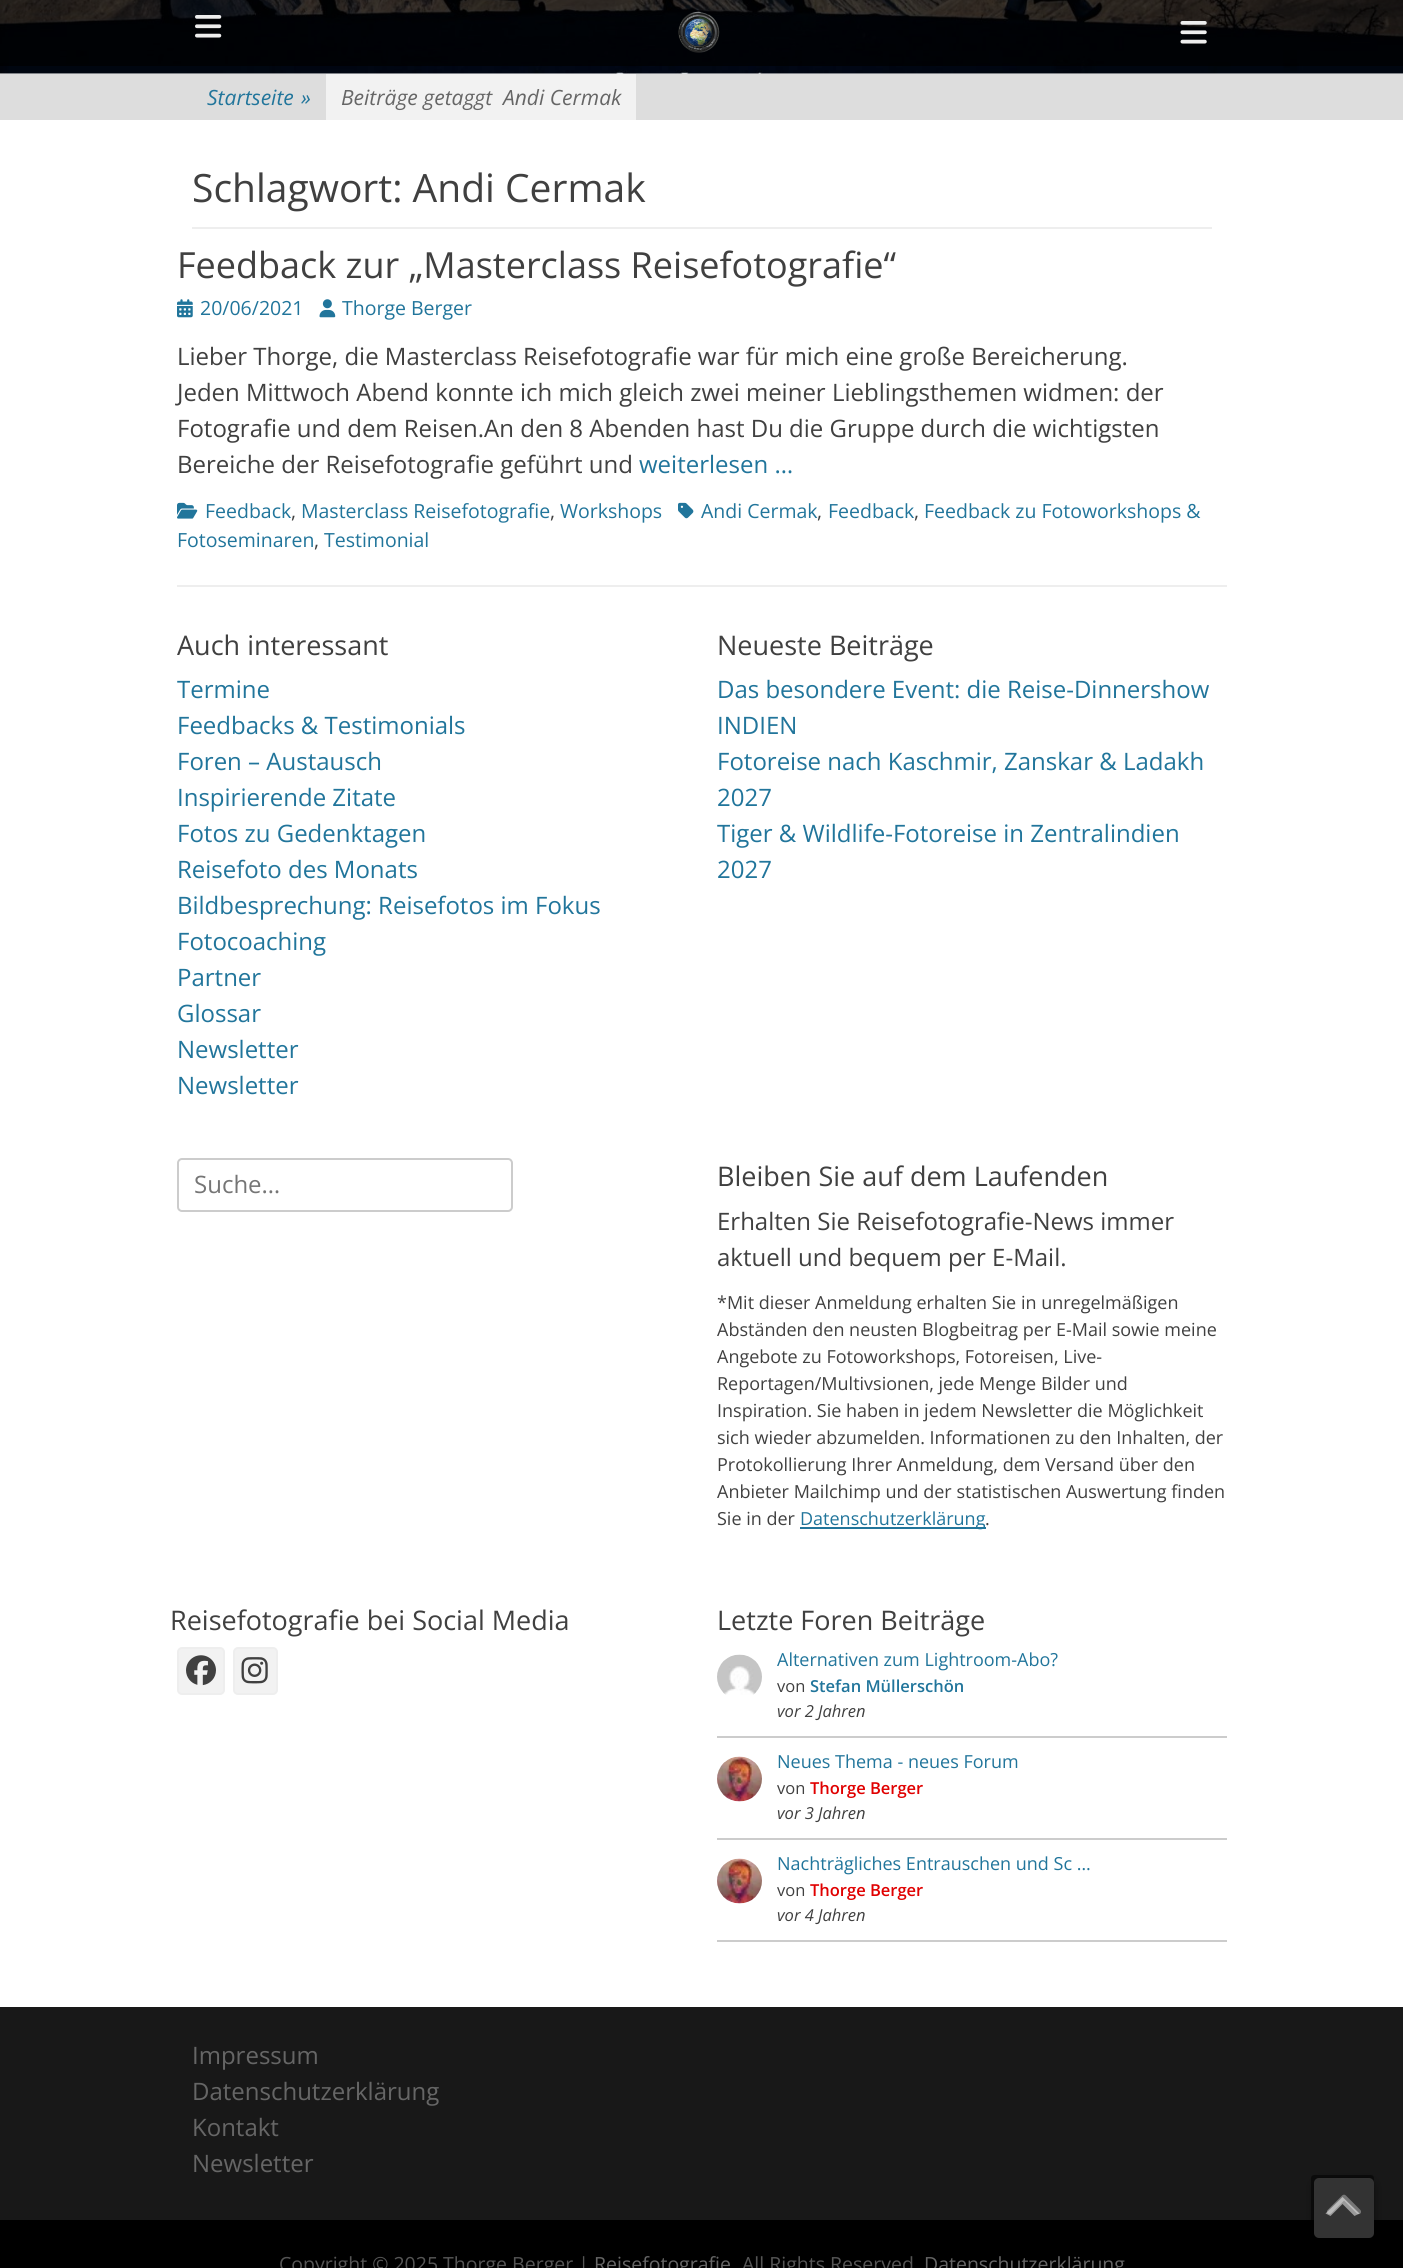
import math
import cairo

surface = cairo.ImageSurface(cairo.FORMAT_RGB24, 1403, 2268)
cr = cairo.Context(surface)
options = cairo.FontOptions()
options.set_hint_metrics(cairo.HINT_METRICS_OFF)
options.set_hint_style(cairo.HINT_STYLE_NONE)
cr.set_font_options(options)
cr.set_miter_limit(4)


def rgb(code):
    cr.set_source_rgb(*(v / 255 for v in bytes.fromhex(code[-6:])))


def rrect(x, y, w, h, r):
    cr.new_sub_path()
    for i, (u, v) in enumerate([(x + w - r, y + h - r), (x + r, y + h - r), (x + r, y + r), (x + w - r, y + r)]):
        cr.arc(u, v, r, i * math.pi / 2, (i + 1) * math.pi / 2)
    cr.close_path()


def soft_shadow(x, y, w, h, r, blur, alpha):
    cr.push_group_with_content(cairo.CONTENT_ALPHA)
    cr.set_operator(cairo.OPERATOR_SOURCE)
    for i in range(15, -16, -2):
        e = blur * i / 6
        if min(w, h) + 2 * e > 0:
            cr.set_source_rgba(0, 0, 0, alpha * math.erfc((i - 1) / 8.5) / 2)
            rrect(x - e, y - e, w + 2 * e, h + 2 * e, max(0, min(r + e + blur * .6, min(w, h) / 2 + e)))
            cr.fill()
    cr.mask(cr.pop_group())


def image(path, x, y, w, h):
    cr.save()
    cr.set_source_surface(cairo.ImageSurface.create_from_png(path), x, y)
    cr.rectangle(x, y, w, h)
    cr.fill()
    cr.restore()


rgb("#ffffff")
cr.paint()
image("img/1.png", 0, 0, 1403, 74)
cr.set_source_rgba(0, 0, 0, 0.7)
cr.rectangle(0, 0, 1403, 66)
cr.fill()
image("img/2.png", 195, 15, 27, 23)
image("img/3.png", 678, 11, 42, 42)
image("img/4.png", 1180, 21, 27, 23)
for x, y, w, h, color in [
    (0, 74, 1403, 46, "#dddddd"),
    (326, 74, 310, 46, "#f2f2f2"),
    (192, 227, 1020, 2, "#eeeeee"),
    (177, 585, 1050, 2, "#eeeeee"),
]:
    rgb(color)
    cr.rectangle(x, y, w, h)
    cr.fill()
image("img/5.png", 177, 299, 16, 19)
image("img/6.png", 319, 299, 17, 19)
image("img/7.png", 678, 502, 16, 17)
image("img/8.png", 177, 502, 21, 17)
rrect(178, 1159, 334, 52, 4)
rgb("#cccccc")
cr.stroke()
rgb("#21759b")
cr.rectangle(800, 1527, 186, 2)
cr.fill()
rgb("#f2f2f2")
rrect(178, 1648, 46, 46, 4)
cr.fill_preserve()
rgb("#eeeeee")
cr.stroke()
image("img/9.png", 186, 1655, 30, 31)
rgb("#f2f2f2")
rrect(234, 1648, 43, 46, 4)
cr.fill_preserve()
rgb("#eeeeee")
cr.stroke()
image("img/10.png", 241, 1657, 27, 27)
rgb("#cccccc")
cr.rectangle(717, 1736, 510, 2)
cr.fill()
image("img/11.png", 717, 1654, 45, 41)
cr.rectangle(717, 1838, 510, 2)
cr.fill()
image("img/12.png", 717, 1756, 45, 46)
cr.rectangle(717, 1940, 510, 2)
cr.fill()
image("img/13.png", 717, 1858, 45, 46)
rgb("#181818")
cr.rectangle(0, 2007, 1403, 213)
cr.fill()
rgb("#000000")
cr.rectangle(0, 2220, 1403, 48)
cr.fill()
rgb("#000000")
soft_shadow(1314, 2181, 60, 60, 5, 4.5, 0.5)
rgb("#666666")
rrect(1314, 2178, 60, 60, 5)
cr.fill()
image("img/14.png", 1327, 2194, 34, 21)
cr.set_source_rgba(0, 0, 0, 0.5)
rrect(1311, 2175, 63, 63, 3)
cr.fill()
cr.set_source_rgba(1, 1, 1, 0.5)
cr.new_path()
cr.move_to(1354.5, 2216)
cr.line_to(1342.5, 2204)
cr.line_to(1330.5, 2216)
cr.line_to(1325.5, 2213.5)
cr.line_to(1342.5, 2197)
cr.line_to(1359.5, 2213.5)
cr.close_path()
cr.fill()
cr.select_font_face("Open Sans", cairo.FONT_SLANT_ITALIC)
cr.set_font_size(21)
rgb("#21759b")
cr.move_to(207, 105)
cr.show_text("Startseite")
cr.move_to(301, 105)
cr.show_text("»")
rgb("#666666")
cr.move_to(341, 105)
cr.show_text("Beiträge getaggt")
cr.move_to(503, 105)
cr.show_text("Andi Cermak")
cr.select_font_face("Open Sans")
cr.set_font_size(39)
rgb("#404040")
cr.move_to(192, 202)
cr.show_text("Schlagwort: Andi Cermak")
cr.set_font_size(36)
cr.move_to(177, 278)
cr.show_text("Feedback zur „Masterclass Reisefotografie“")
cr.set_font_size(19.5)
rgb("#21759b")
cr.move_to(200, 315)
cr.show_text("20/06/2021")
cr.move_to(342, 315)
cr.show_text("Thorge Berger")
cr.set_font_size(24)
rgb("#404040")
for x, y, s in [
    (177, 365, "Lieber Thorge, die Masterclass Reisefotografie war für mich eine große Bereicherung."),
    (177, 401, "Jeden Mittwoch Abend konnte ich mich gleich zwei meiner Lieblingsthemen widmen: der"),
    (177, 437, "Fotografie und dem Reisen.An den 8 Abenden hast Du die Gruppe durch die wichtigsten"),
    (177, 473, "Bereiche der Reisefotografie geführt und"),
]:
    cr.move_to(x, y)
    cr.show_text(s)
rgb("#21759b")
cr.move_to(639, 473)
cr.show_text("weiterlesen …")
cr.set_font_size(19.5)
cr.move_to(701, 518)
cr.show_text("Andi Cermak")
rgb("#404040")
cr.move_to(817, 518)
cr.show_text(",")
rgb("#21759b")
cr.move_to(828, 518)
cr.show_text("Feedback")
rgb("#404040")
cr.move_to(914, 518)
cr.show_text(",")
rgb("#21759b")
cr.move_to(924, 518)
cr.show_text("Feedback zu Fotoworkshops &")
cr.move_to(177, 547)
cr.show_text("Fotoseminaren")
rgb("#404040")
cr.move_to(314, 547)
cr.show_text(",")
rgb("#21759b")
cr.move_to(324, 547)
cr.show_text("Testimonial")
cr.move_to(205, 518)
cr.show_text("Feedback")
rgb("#404040")
cr.move_to(291, 518)
cr.show_text(",")
rgb("#21759b")
cr.move_to(301, 518)
cr.show_text("Masterclass Reisefotografie")
rgb("#404040")
cr.move_to(550, 518)
cr.show_text(",")
rgb("#21759b")
cr.move_to(560, 518)
cr.show_text("Workshops")
cr.set_font_size(27)
rgb("#404040")
cr.move_to(177, 655)
cr.show_text("Auch interessant")
cr.set_font_size(24)
rgb("#21759b")
for x, y, s in [
    (177, 698, "Termine"),
    (177, 734, "Feedbacks & Testimonials"),
    (177, 770, "Foren – Austausch"),
    (177, 806, "Inspirierende Zitate"),
    (177, 842, "Fotos zu Gedenktagen"),
    (177, 878, "Reisefoto des Monats"),
    (177, 914, "Bildbesprechung: Reisefotos im Fokus"),
    (177, 950, "Fotocoaching"),
    (177, 986, "Partner"),
    (177, 1022, "Glossar"),
    (177, 1058, "Newsletter"),
    (177, 1094, "Newsletter"),
]:
    cr.move_to(x, y)
    cr.show_text(s)
cr.set_font_size(27)
rgb("#404040")
cr.move_to(717, 655)
cr.show_text("Neueste Beiträge")
cr.set_font_size(24)
rgb("#21759b")
for x, y, s in [
    (717, 698, "Das besondere Event: die Reise-Dinnershow"),
    (717, 734, "INDIEN"),
    (717, 770, "Fotoreise nach Kaschmir, Zanskar & Ladakh"),
    (717, 806, "2027"),
    (717, 842, "Tiger & Wildlife-Fotoreise in Zentralindien"),
    (717, 878, "2027"),
]:
    cr.move_to(x, y)
    cr.show_text(s)
rgb("#757575")
cr.move_to(194, 1193)
cr.show_text("Suche…")
cr.set_font_size(27)
rgb("#404040")
cr.move_to(717, 1186)
cr.show_text("Bleiben Sie auf dem Laufenden")
cr.set_font_size(24)
cr.move_to(717, 1230)
cr.show_text("Erhalten Sie Reisefotografie-News immer")
cr.move_to(717, 1266)
cr.show_text("aktuell und bequem per E-Mail.")
cr.set_font_size(18)
for x, y, s in [
    (717, 1309, "*Mit dieser Anmeldung erhalten Sie in unregelmäßigen"),
    (717, 1336, "Abständen den neusten Blogbeitrag per E-Mail sowie meine"),
    (717, 1363, "Angebote zu Fotoworkshops, Fotoreisen, Live-"),
    (717, 1390, "Reportagen/Multivsionen, jede Menge Bilder und"),
    (717, 1417, "Inspiration. Sie haben in jedem Newsletter die Möglichkeit"),
    (717, 1444, "sich wieder abzumelden. Informationen zu den Inhalten, der"),
    (717, 1471, "Protokollierung Ihrer Anmeldung, dem Versand über den"),
    (717, 1498, "Anbieter Mailchimp und der statistischen Auswertung finden"),
    (717, 1525, "Sie in der"),
]:
    cr.move_to(x, y)
    cr.show_text(s)
rgb("#21759b")
cr.move_to(800, 1525)
cr.show_text("Datenschutzerklärung")
rgb("#404040")
cr.move_to(985, 1525)
cr.show_text(".")
cr.set_font_size(27)
cr.move_to(170, 1630)
cr.show_text("Reisefotografie bei Social Media")
cr.move_to(717, 1630)
cr.show_text("Letzte Foren Beiträge")
cr.set_font_size(18)
rgb("#21759b")
cr.move_to(777, 1666)
cr.show_text("Alternativen zum Lightroom-Abo?")
cr.set_font_size(16.5)
rgb("#404040")
cr.move_to(777, 1692)
cr.show_text("von")
cr.select_font_face("Open Sans SemiBold")
rgb("#21759b")
cr.move_to(810, 1692)
cr.show_text("Stefan Müllerschön")
cr.select_font_face("Open Sans", cairo.FONT_SLANT_ITALIC)
rgb("#404040")
cr.move_to(777, 1717)
cr.show_text("vor 2 Jahren")
cr.select_font_face("Open Sans")
cr.set_font_size(18)
rgb("#21759b")
cr.move_to(777, 1768)
cr.show_text("Neues Thema - neues Forum")
cr.set_font_size(16.5)
rgb("#404040")
cr.move_to(777, 1794)
cr.show_text("von")
cr.select_font_face("Open Sans SemiBold")
rgb("#e00000")
cr.move_to(810, 1794)
cr.show_text("Thorge Berger")
cr.select_font_face("Open Sans", cairo.FONT_SLANT_ITALIC)
rgb("#404040")
cr.move_to(777, 1819)
cr.show_text("vor 3 Jahren")
cr.select_font_face("Open Sans")
cr.set_font_size(18)
rgb("#21759b")
cr.move_to(777, 1870)
cr.show_text("Nachträgliches Entrauschen und Sc …")
cr.set_font_size(16.5)
rgb("#404040")
cr.move_to(777, 1896)
cr.show_text("von")
cr.select_font_face("Open Sans SemiBold")
rgb("#e00000")
cr.move_to(810, 1896)
cr.show_text("Thorge Berger")
cr.select_font_face("Open Sans", cairo.FONT_SLANT_ITALIC)
rgb("#404040")
cr.move_to(777, 1921)
cr.show_text("vor 4 Jahren")
cr.select_font_face("Open Sans")
cr.set_font_size(24)
rgb("#666666")
for x, y, s in [
    (192, 2064, "Impressum"),
    (192, 2100, "Datenschutzerklärung"),
    (192, 2136, "Kontakt"),
    (192, 2172, "Newsletter"),
]:
    cr.move_to(x, y)
    cr.show_text(s)
cr.set_font_size(19.5)
rgb("#555555")
cr.move_to(279, 2271)
cr.show_text("Copyright © 2025 Thorge Berger |")
rgb("#666666")
cr.move_to(594, 2271)
cr.show_text("Reisefotografie")
rgb("#555555")
cr.move_to(742, 2271)
cr.show_text("All Rights Reserved")
rgb("#666666")
cr.move_to(924, 2271)
cr.show_text("Datenschutzerklärung")
surface.write_to_png("page.png")
